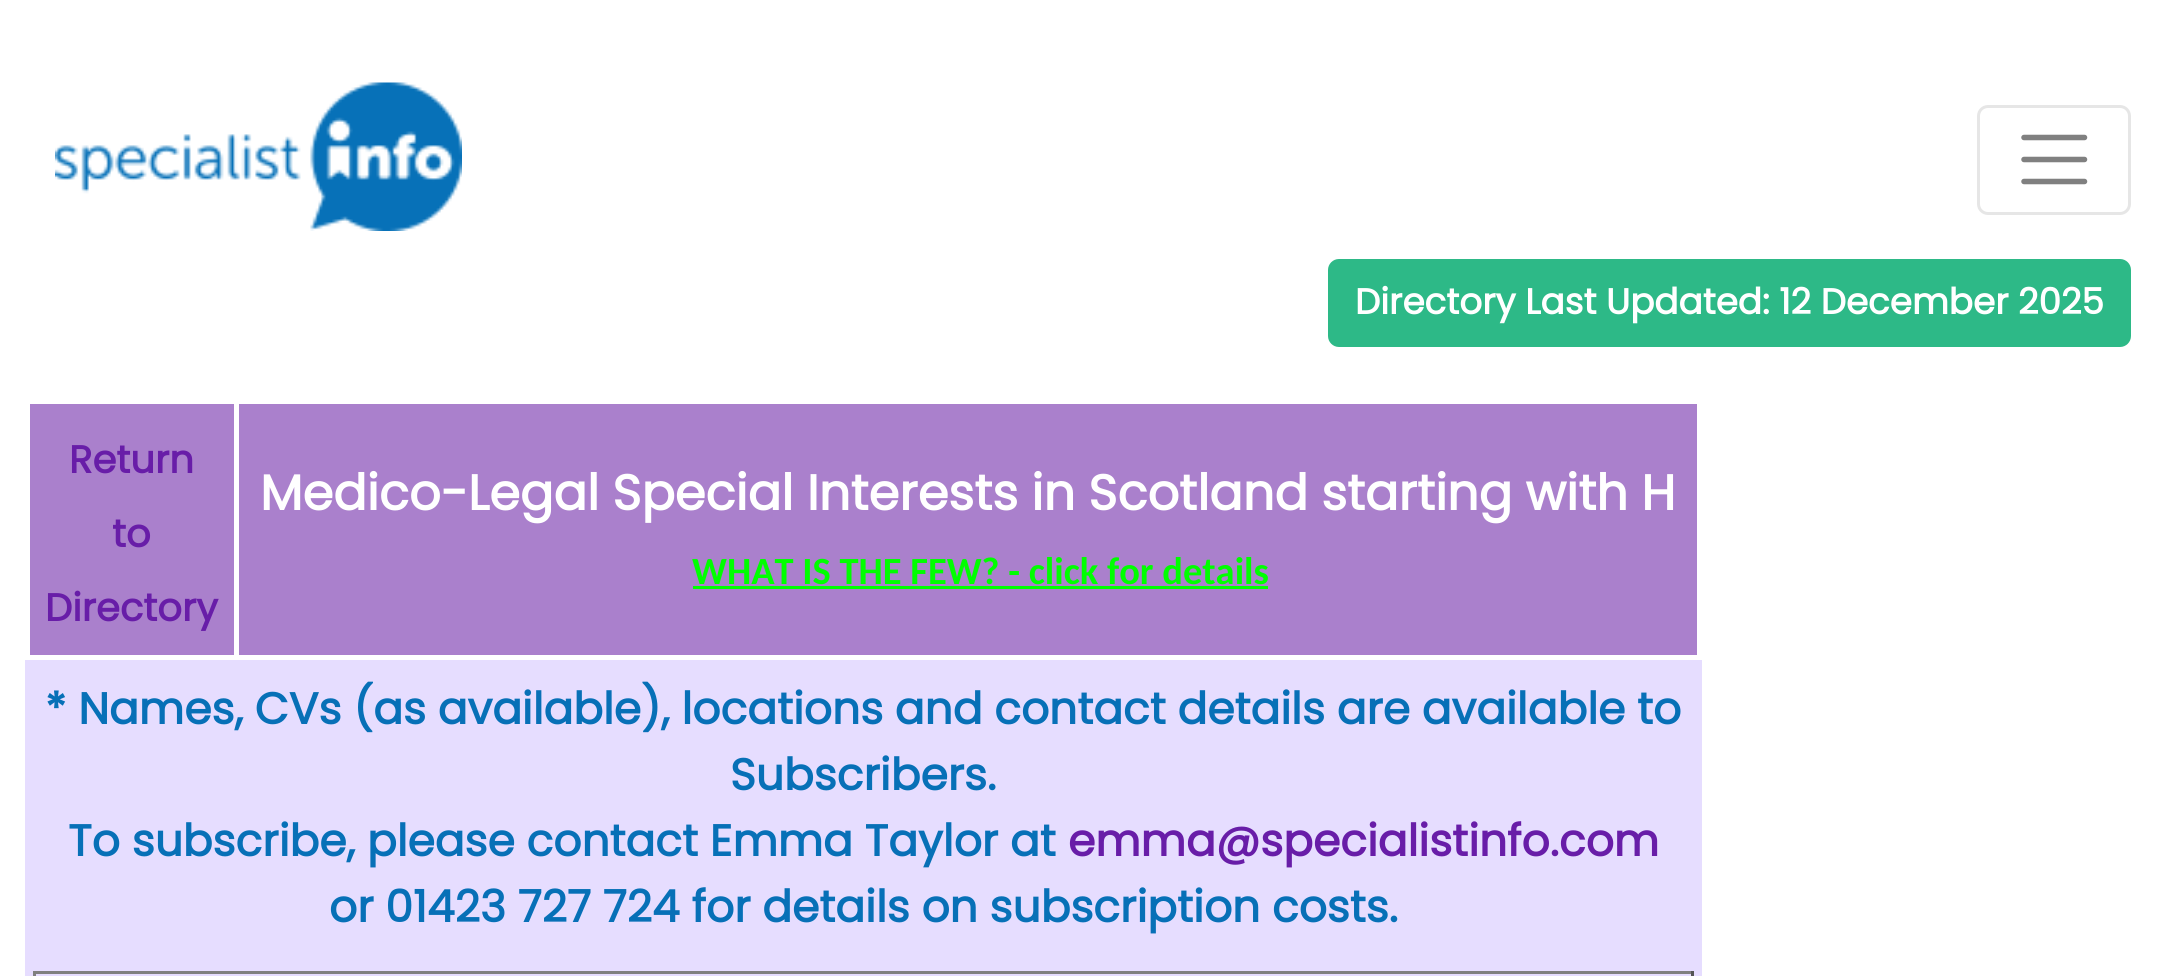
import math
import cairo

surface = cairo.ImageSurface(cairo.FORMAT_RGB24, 2184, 976)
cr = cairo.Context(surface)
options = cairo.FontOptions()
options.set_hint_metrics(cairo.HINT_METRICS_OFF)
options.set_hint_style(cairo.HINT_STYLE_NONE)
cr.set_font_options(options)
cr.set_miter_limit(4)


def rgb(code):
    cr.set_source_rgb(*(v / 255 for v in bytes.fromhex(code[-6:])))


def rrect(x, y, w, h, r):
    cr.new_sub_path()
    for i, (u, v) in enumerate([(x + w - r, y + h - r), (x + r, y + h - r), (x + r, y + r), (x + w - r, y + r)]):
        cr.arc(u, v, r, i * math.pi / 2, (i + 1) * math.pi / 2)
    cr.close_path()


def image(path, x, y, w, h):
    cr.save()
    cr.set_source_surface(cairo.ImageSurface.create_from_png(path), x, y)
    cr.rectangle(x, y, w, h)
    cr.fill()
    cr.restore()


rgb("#ffffff")
cr.paint()
image("img/1.png", 55, 82, 407, 149)
rrect(1978.5, 106.5, 151, 107, 9.5)
rgb("#e6e6e6")
cr.set_line_width(3)
cr.stroke()
cr.new_path()
cr.move_to(2024, 137.5)
cr.line_to(2084.5, 137.5)
cr.move_to(2024, 159.5)
cr.line_to(2084.5, 159.5)
cr.move_to(2024, 181.5)
cr.line_to(2084.5, 181.5)
rgb("#808080")
cr.set_line_width(5.5)
cr.set_line_cap(cairo.LINE_CAP_ROUND)
cr.stroke()
rgb("#2db987")
rrect(1328, 259, 803, 88, 11)
cr.fill()
for x, y, w, h, color in [
    (30, 404, 204, 251, "#aa80cc"),
    (239, 404, 1458, 251, "#aa80cc"),
    (693, 586, 575, 3, "#00ff00"),
    (25, 660, 1677, 316, "#e6ddff"),
    (33, 971, 1661, 3, "#808080"),
    (1691, 971, 3, 5, "#555555"),
    (33, 971, 3, 5, "#808080"),
]:
    rgb(color)
    cr.rectangle(x, y, w, h)
    cr.fill()
cr.select_font_face("Poppins", cairo.FONT_SLANT_NORMAL, cairo.FONT_WEIGHT_BOLD)
cr.set_font_size(35.75)
rgb("#ffffff")
cr.move_to(1355, 314)
cr.show_text("Directory Last Updated: 12 December 2025")
cr.set_font_size(38.5)
rgb("#681da8")
for x, y, s in [
    (69, 473, "Return"),
    (112, 547, "to"),
    (45, 621, "Directory"),
]:
    cr.move_to(x, y)
    cr.show_text(s)
cr.set_font_size(49.5)
rgb("#ffffff")
cr.move_to(260, 510)
cr.show_text("Medico-Legal Special Interests in Scotland starting with H")
cr.select_font_face("Carlito", cairo.FONT_SLANT_NORMAL, cairo.FONT_WEIGHT_BOLD)
cr.set_font_size(38.5)
rgb("#00ff00")
cr.move_to(692, 584)
cr.show_text("WHAT IS THE FEW? - click for details")
cr.select_font_face("Poppins", cairo.FONT_SLANT_NORMAL, cairo.FONT_WEIGHT_BOLD)
cr.set_font_size(44)
rgb("#0770b7")
for x, y, s in [
    (45, 724, "* Names, CVs (as available), locations and contact details are available to"),
    (730, 790, "Subscribers."),
    (68, 856, "To subscribe, please contact Emma Taylor at"),
]:
    cr.move_to(x, y)
    cr.show_text(s)
rgb("#681da8")
cr.move_to(1068, 856)
cr.show_text("emma@specialistinfo.com")
rgb("#0770b7")
cr.move_to(329, 922)
cr.show_text("or 01423 727 724 for details on subscription costs.")
surface.write_to_png("page.png")
